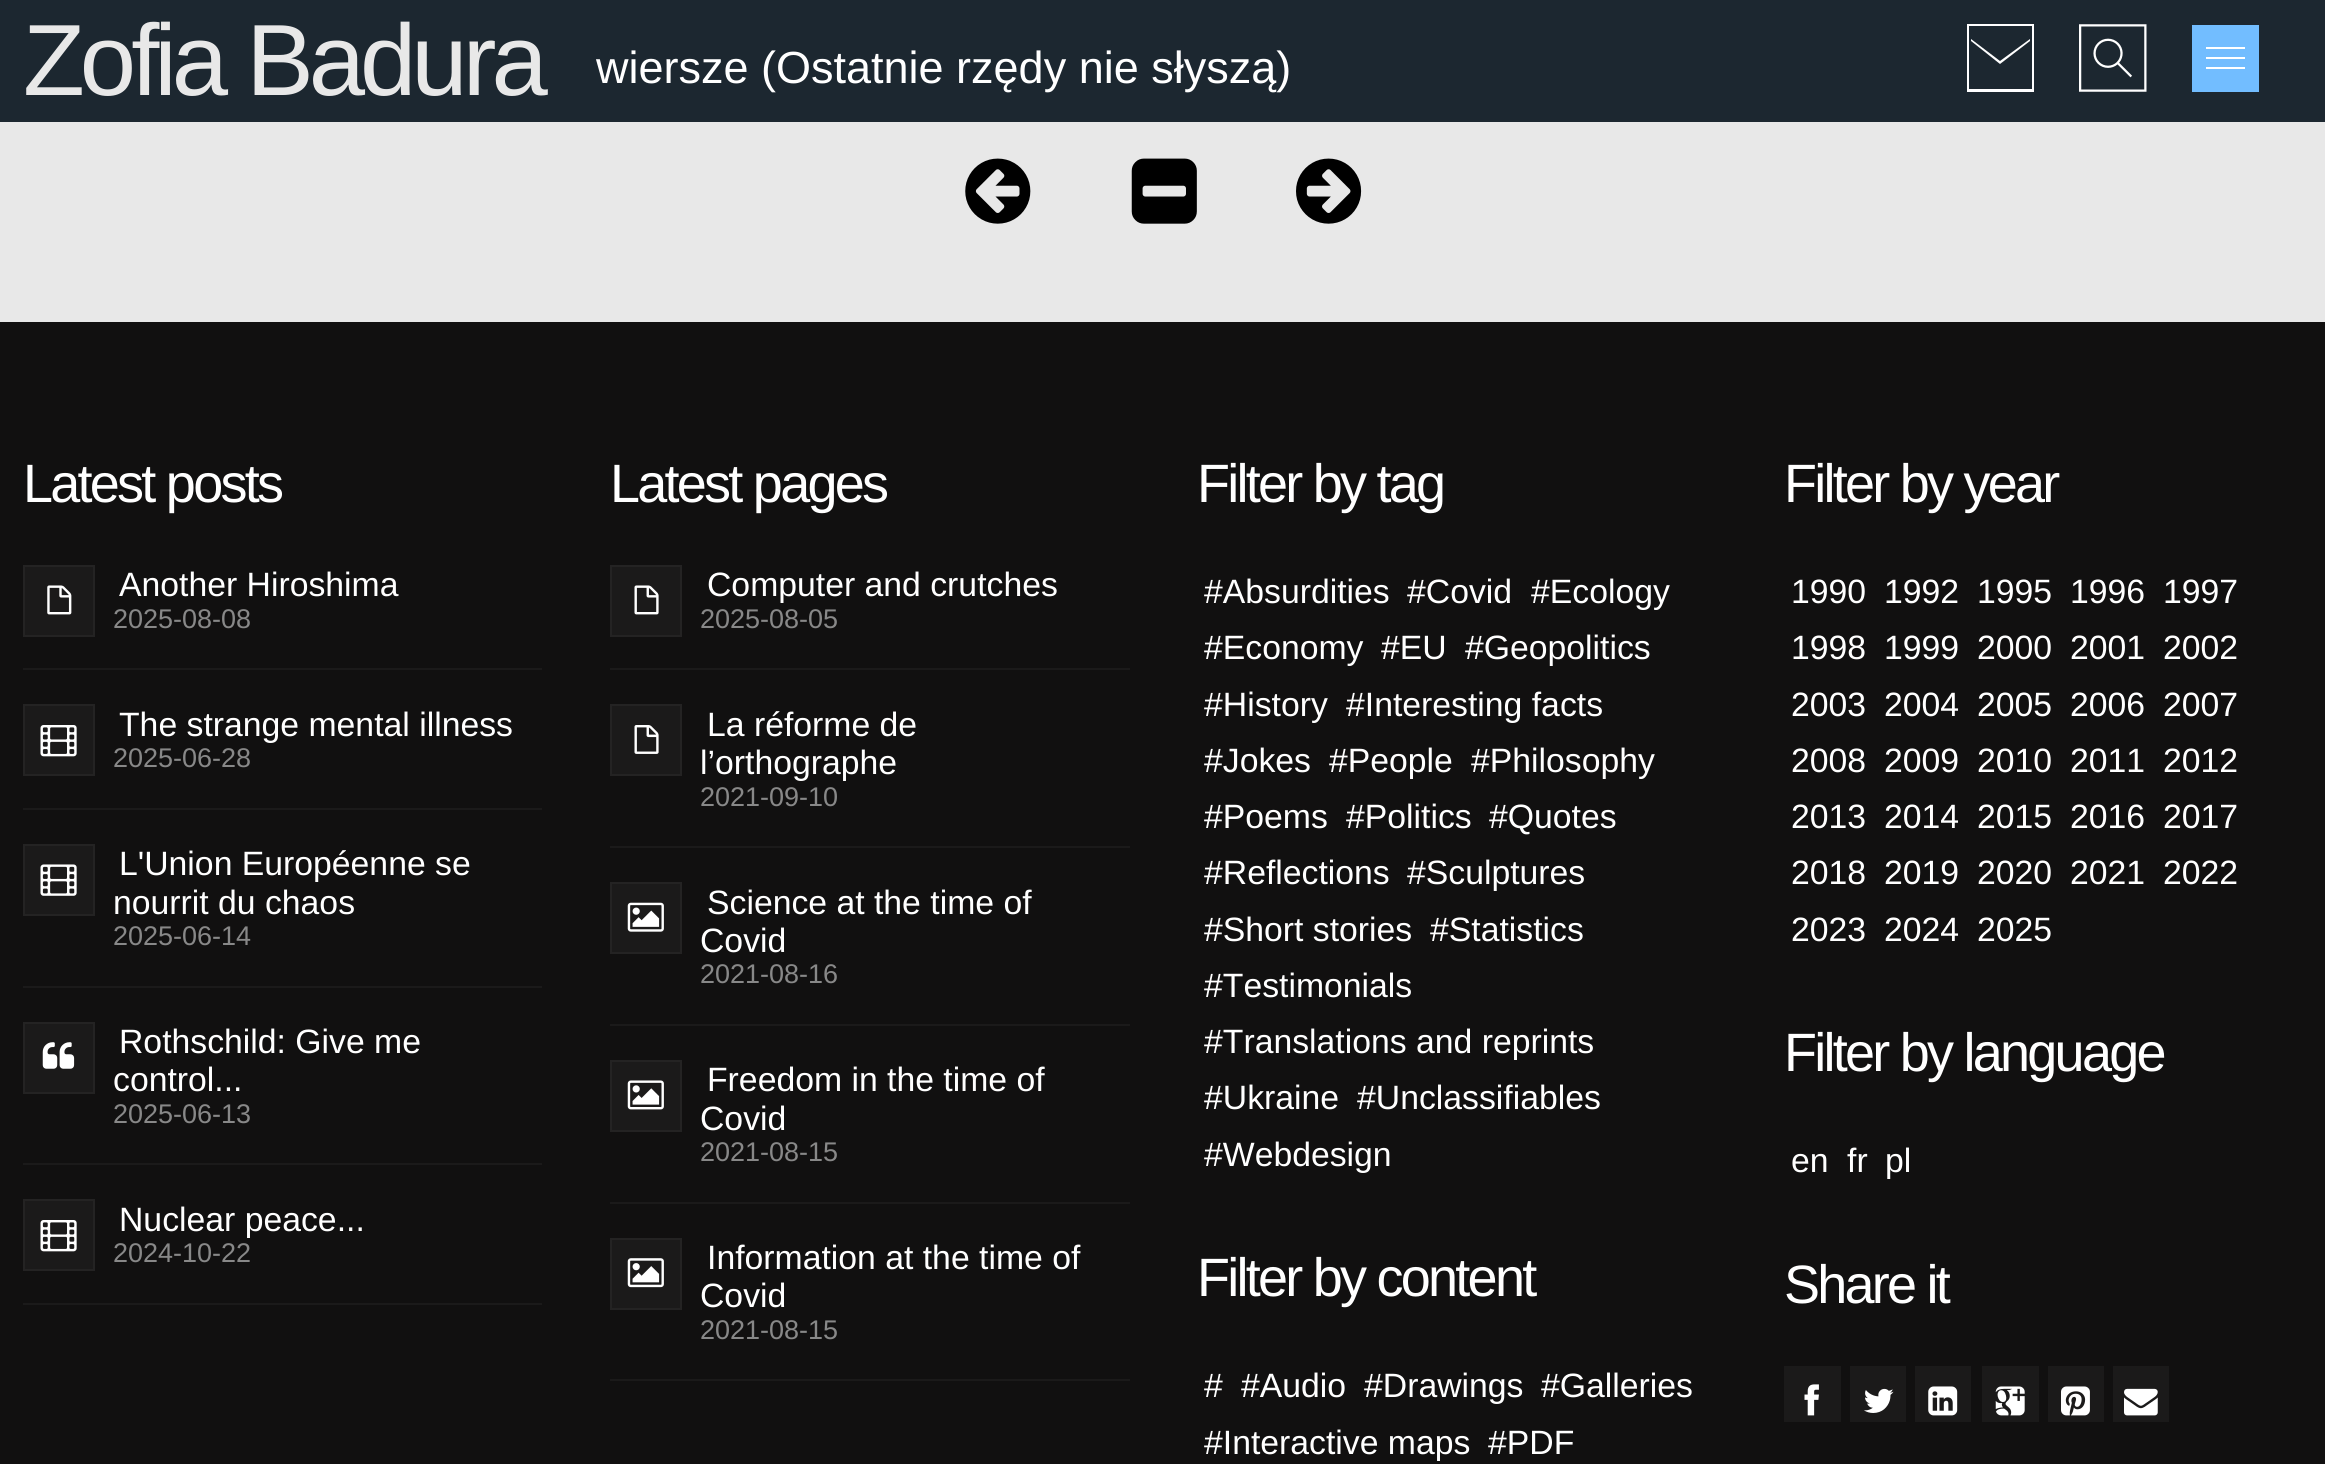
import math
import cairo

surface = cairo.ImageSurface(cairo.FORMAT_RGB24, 2325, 1464)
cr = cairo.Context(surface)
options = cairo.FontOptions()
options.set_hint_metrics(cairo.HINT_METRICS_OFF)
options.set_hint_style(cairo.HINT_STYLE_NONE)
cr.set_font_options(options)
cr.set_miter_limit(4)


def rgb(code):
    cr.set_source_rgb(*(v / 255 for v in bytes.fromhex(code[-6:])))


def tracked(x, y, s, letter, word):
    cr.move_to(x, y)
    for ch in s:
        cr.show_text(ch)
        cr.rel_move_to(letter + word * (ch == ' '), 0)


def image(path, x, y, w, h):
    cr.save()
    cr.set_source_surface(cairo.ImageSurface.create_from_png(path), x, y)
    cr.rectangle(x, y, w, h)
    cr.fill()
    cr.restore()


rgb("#e8e8e8")
cr.paint()
rgb("#1c2730")
cr.rectangle(0, 0, 2325, 122)
cr.fill()
cr.save()
cr.rectangle(1967, 0, 67, 106)
cr.clip()
rgb("#ffffff")
cr.new_path()
cr.move_to(2032, 26)
cr.line_to(2032, 89)
cr.line_to(1969, 89)
cr.line_to(1969, 26)
cr.line_to(2032, 26)
cr.move_to(2034, 24)
cr.line_to(1966, 24)
cr.line_to(1966, 92)
cr.line_to(2034, 92)
cr.close_path()
cr.fill()
cr.restore()
rgb("#ffffff")
cr.new_path()
cr.move_to(1971, 39)
cr.line_to(1971, 41)
cr.line_to(2000, 64)
cr.line_to(2030, 41)
cr.line_to(2030, 39)
cr.line_to(2000, 61)
cr.close_path()
cr.fill()
image("img/1.png", 2079, 24, 68, 68)
for x, y, w, h, color in [
    (2192, 25, 67, 67, "#72bdff"),
    (2206, 47, 39, 2, "#ffffff"),
    (2206, 57, 39, 2, "#ffffff"),
    (2206, 67, 39, 2, "#ffffff"),
]:
    rgb(color)
    cr.rectangle(x, y, w, h)
    cr.fill()
image("img/2.png", 965, 158, 66, 66)
image("img/3.png", 1131, 158, 66, 66)
image("img/4.png", 1296, 158, 66, 66)
rgb("#111010")
cr.rectangle(0, 322, 2325, 1142)
cr.fill()
rgb("#1b1a1a")
cr.rectangle(23, 668, 519, 2)
cr.fill()
cr.rectangle(24, 566, 70, 70)
cr.fill_preserve()
rgb("#242323")
cr.stroke()
image("img/5.png", 47, 585, 25, 30)
rgb("#1b1a1a")
cr.rectangle(23, 808, 519, 2)
cr.fill()
cr.rectangle(24, 705, 70, 70)
cr.fill_preserve()
rgb("#242323")
cr.stroke()
image("img/6.png", 40, 725, 37, 32)
rgb("#1b1a1a")
cr.rectangle(23, 986, 519, 2)
cr.fill()
cr.rectangle(24, 845, 70, 70)
cr.fill_preserve()
rgb("#242323")
cr.stroke()
image("img/7.png", 40, 864, 37, 32)
rgb("#1b1a1a")
cr.rectangle(23, 1163, 519, 2)
cr.fill()
cr.rectangle(24, 1023, 70, 70)
cr.fill_preserve()
rgb("#242323")
cr.stroke()
image("img/8.png", 42, 1042, 33, 27)
rgb("#1b1a1a")
cr.rectangle(23, 1303, 519, 2)
cr.fill()
cr.rectangle(24, 1200, 70, 70)
cr.fill_preserve()
rgb("#242323")
cr.stroke()
image("img/6.png", 40, 1220, 37, 32)
rgb("#1b1a1a")
cr.rectangle(610, 668, 520, 2)
cr.fill()
cr.rectangle(611, 566, 70, 70)
cr.fill_preserve()
rgb("#242323")
cr.stroke()
image("img/9.png", 634, 585, 25, 30)
rgb("#1b1a1a")
cr.rectangle(610, 846, 520, 2)
cr.fill()
cr.rectangle(611, 705, 70, 70)
cr.fill_preserve()
rgb("#242323")
cr.stroke()
image("img/10.png", 634, 725, 25, 29)
rgb("#1b1a1a")
cr.rectangle(610, 1024, 520, 2)
cr.fill()
cr.rectangle(611, 883, 70, 70)
cr.fill_preserve()
rgb("#242323")
cr.stroke()
image("img/11.png", 627, 902, 37, 30)
rgb("#1b1a1a")
cr.rectangle(610, 1202, 520, 2)
cr.fill()
cr.rectangle(611, 1061, 70, 70)
cr.fill_preserve()
rgb("#242323")
cr.stroke()
image("img/12.png", 627, 1080, 37, 30)
rgb("#1b1a1a")
cr.rectangle(610, 1379, 520, 2)
cr.fill()
cr.rectangle(611, 1239, 70, 70)
cr.fill_preserve()
rgb("#242323")
cr.stroke()
image("img/13.png", 627, 1258, 37, 30)
rgb("#1b1a1a")
cr.rectangle(1784, 1366, 57, 56)
cr.fill()
image("img/14.png", 1804, 1384, 15, 32)
cr.rectangle(1850, 1366, 56, 56)
cr.fill()
image("img/15.png", 1864, 1388, 30, 25)
cr.rectangle(1915, 1366, 56, 56)
cr.fill()
image("img/16.png", 1928, 1386, 30, 30)
cr.rectangle(1982, 1366, 57, 56)
cr.fill()
image("img/17.png", 1995, 1386, 30, 30)
cr.rectangle(2048, 1366, 56, 56)
cr.fill()
image("img/18.png", 2061, 1386, 29, 30)
cr.rectangle(2113, 1366, 56, 56)
cr.fill()
image("img/19.png", 2124, 1388, 34, 28)
cr.select_font_face("Liberation Sans")
cr.set_font_size(101.25)
rgb("#e8e8e8")
tracked(23, 95, "Zofia Badura", -5, 0)
cr.set_font_size(45)
rgb("#ffffff")
cr.move_to(596, 83)
cr.show_text("wiersze (Ostatnie rzędy nie słyszą)")
cr.set_font_size(54)
tracked(23, 502, "Latest posts", -2.75, 0)
cr.set_font_size(33.75)
cr.move_to(119, 596)
cr.show_text("Another Hiroshima")
cr.set_font_size(27)
rgb("#888888")
cr.move_to(113, 628)
cr.show_text("2025-08-08")
cr.set_font_size(33.75)
rgb("#ffffff")
cr.move_to(119, 736)
cr.show_text("The strange mental illness")
cr.set_font_size(27)
rgb("#888888")
cr.move_to(113, 767)
cr.show_text("2025-06-28")
cr.set_font_size(33.75)
rgb("#ffffff")
cr.move_to(119, 875)
cr.show_text("L'Union Européenne se")
cr.move_to(113, 914)
cr.show_text("nourrit du chaos")
cr.set_font_size(27)
rgb("#888888")
cr.move_to(113, 945)
cr.show_text("2025-06-14")
cr.set_font_size(33.75)
rgb("#ffffff")
cr.move_to(119, 1053)
cr.show_text("Rothschild: Give me")
cr.move_to(113, 1091)
cr.show_text("control...")
cr.set_font_size(27)
rgb("#888888")
cr.move_to(113, 1123)
cr.show_text("2025-06-13")
cr.set_font_size(33.75)
rgb("#ffffff")
cr.move_to(119, 1231)
cr.show_text("Nuclear peace...")
cr.set_font_size(27)
rgb("#888888")
cr.move_to(113, 1262)
cr.show_text("2024-10-22")
cr.set_font_size(54)
rgb("#ffffff")
tracked(610, 502, "Latest pages", -2.75, 0)
cr.set_font_size(33.75)
cr.move_to(707, 596)
cr.show_text("Computer and crutches")
cr.set_font_size(27)
rgb("#888888")
cr.move_to(700, 628)
cr.show_text("2025-08-05")
cr.set_font_size(33.75)
rgb("#ffffff")
cr.move_to(707, 736)
cr.show_text("La réforme de")
cr.move_to(700, 774)
cr.show_text("l’orthographe")
cr.set_font_size(27)
rgb("#888888")
cr.move_to(700, 806)
cr.show_text("2021-09-10")
cr.set_font_size(33.75)
rgb("#ffffff")
cr.move_to(707, 914)
cr.show_text("Science at the time of")
cr.move_to(700, 952)
cr.show_text("Covid")
cr.set_font_size(27)
rgb("#888888")
cr.move_to(700, 983)
cr.show_text("2021-08-16")
cr.set_font_size(33.75)
rgb("#ffffff")
cr.move_to(707, 1091)
cr.show_text("Freedom in the time of")
cr.move_to(700, 1130)
cr.show_text("Covid")
cr.set_font_size(27)
rgb("#888888")
cr.move_to(700, 1161)
cr.show_text("2021-08-15")
cr.set_font_size(33.75)
rgb("#ffffff")
cr.move_to(707, 1269)
cr.show_text("Information at the time of")
cr.move_to(700, 1307)
cr.show_text("Covid")
cr.set_font_size(27)
rgb("#888888")
cr.move_to(700, 1339)
cr.show_text("2021-08-15")
cr.set_font_size(54)
rgb("#ffffff")
tracked(1197, 502, "Filter by tag", -2.75, 0)
cr.set_font_size(33.75)
for x, y, s in [
    (1204, 603, "#Absurdities"),
    (1407, 603, "#Covid"),
    (1531, 603, "#Ecology"),
    (1204, 659, "#Economy"),
    (1381, 659, "#EU"),
    (1465, 659, "#Geopolitics"),
    (1204, 716, "#History"),
    (1346, 716, "#Interesting facts"),
    (1204, 772, "#Jokes"),
    (1329, 772, "#People"),
    (1471, 772, "#Philosophy"),
    (1204, 828, "#Poems"),
    (1346, 828, "#Politics"),
    (1489, 828, "#Quotes"),
    (1204, 884, "#Reflections"),
    (1407, 884, "#Sculptures"),
    (1204, 941, "#Short stories"),
    (1430, 941, "#Statistics"),
    (1204, 997, "#Testimonials"),
    (1204, 1053, "#Translations and reprints"),
    (1204, 1109, "#Ukraine"),
    (1357, 1109, "#Unclassifiables"),
    (1204, 1166, "#Webdesign"),
]:
    cr.move_to(x, y)
    cr.show_text(s)
cr.set_font_size(54)
tracked(1197, 1296, "Filter by content", -2.75, 0)
cr.set_font_size(33.75)
for x, y, s in [
    (1204, 1397, "#"),
    (1241, 1397, "#Audio"),
    (1364, 1397, "#Drawings"),
    (1541, 1397, "#Galleries"),
    (1204, 1454, "#Interactive maps"),
    (1488, 1454, "#PDF"),
]:
    cr.move_to(x, y)
    cr.show_text(s)
cr.set_font_size(54)
tracked(1784, 502, "Filter by year", -2.75, 0)
cr.set_font_size(33.75)
for x, y, s in [
    (1791, 603, "1990"),
    (1884, 603, "1992"),
    (1977, 603, "1995"),
    (2070, 603, "1996"),
    (2163, 603, "1997"),
    (1791, 659, "1998"),
    (1884, 659, "1999"),
    (1977, 659, "2000"),
    (2070, 659, "2001"),
    (2163, 659, "2002"),
    (1791, 716, "2003"),
    (1884, 716, "2004"),
    (1977, 716, "2005"),
    (2070, 716, "2006"),
    (2163, 716, "2007"),
    (1791, 772, "2008"),
    (1884, 772, "2009"),
    (1977, 772, "2010"),
    (2070, 772, "2011"),
    (2163, 772, "2012"),
    (1791, 828, "2013"),
    (1884, 828, "2014"),
    (1977, 828, "2015"),
    (2070, 828, "2016"),
    (2163, 828, "2017"),
    (1791, 884, "2018"),
    (1884, 884, "2019"),
    (1977, 884, "2020"),
    (2070, 884, "2021"),
    (2163, 884, "2022"),
    (1791, 941, "2023"),
    (1884, 941, "2024"),
    (1977, 941, "2025"),
]:
    cr.move_to(x, y)
    cr.show_text(s)
cr.set_font_size(54)
tracked(1784, 1071, "Filter by language", -2.75, 0)
cr.set_font_size(33.75)
for x, y, s in [
    (1791, 1172, "en"),
    (1847, 1172, "fr"),
    (1885, 1172, "pl"),
]:
    cr.move_to(x, y)
    cr.show_text(s)
cr.set_font_size(54)
tracked(1784, 1303, "Share it", -2.75, 0)
surface.write_to_png("page.png")
